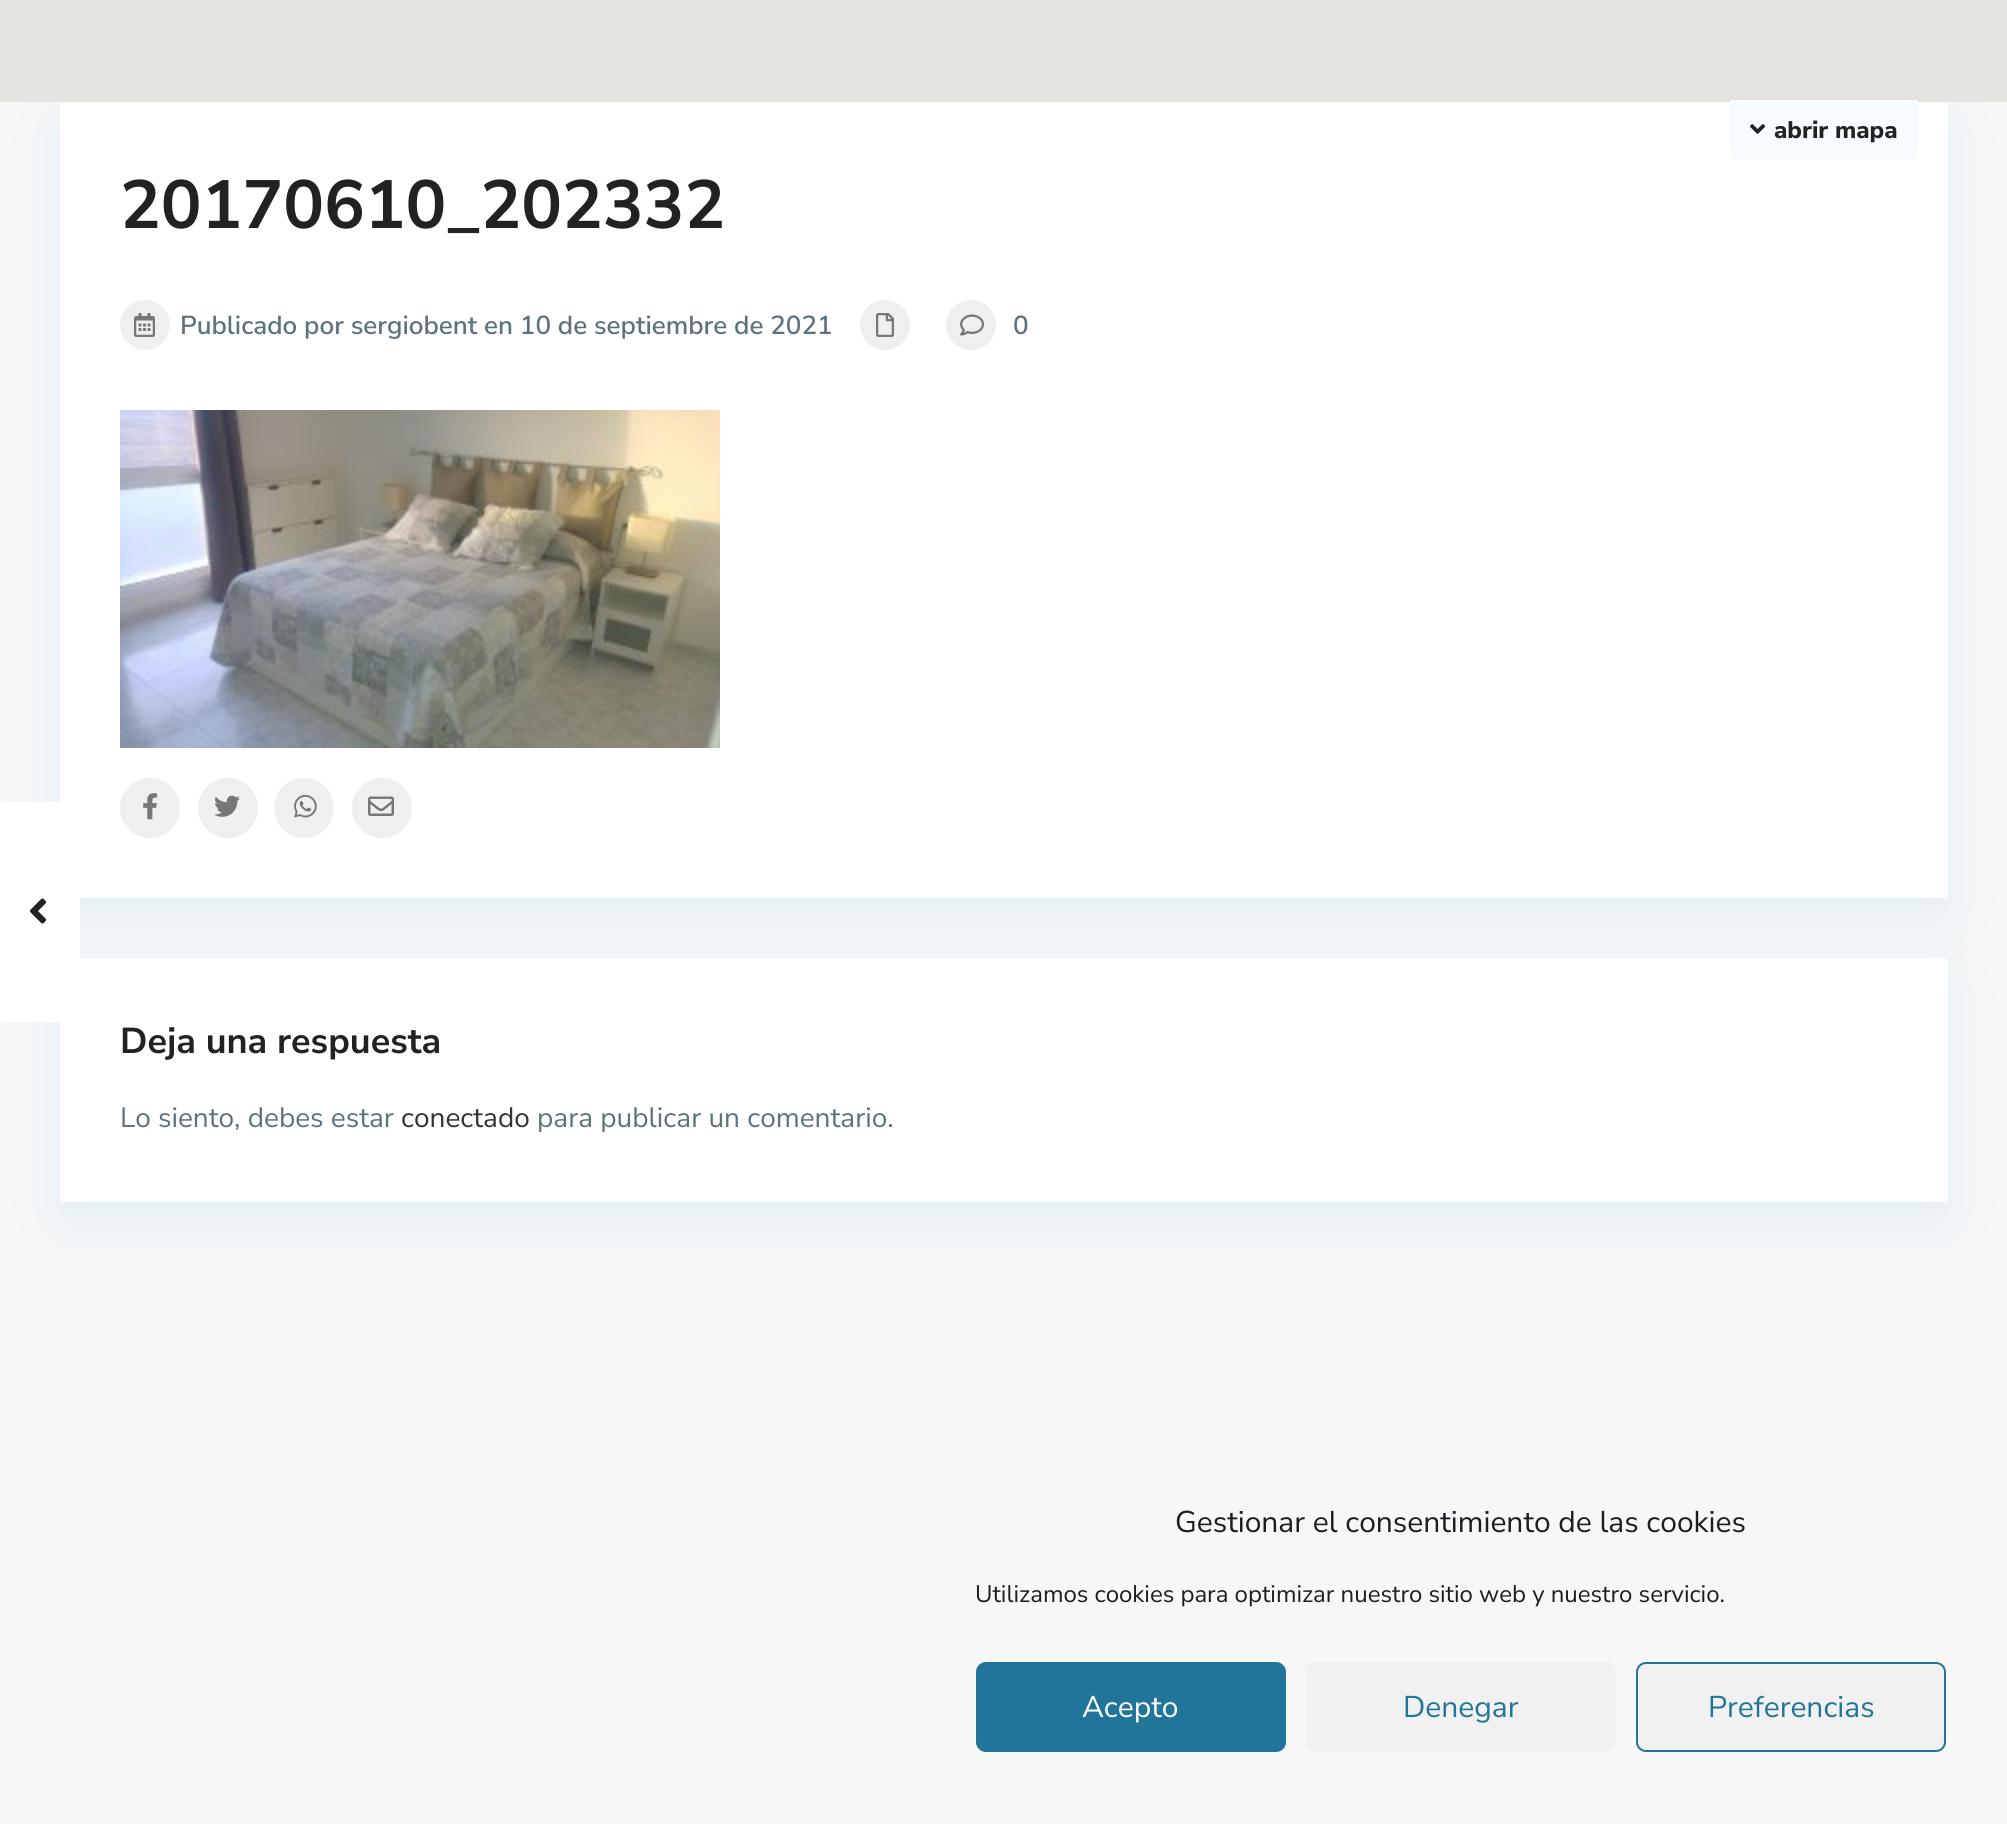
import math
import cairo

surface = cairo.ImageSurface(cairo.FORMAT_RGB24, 2007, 1824)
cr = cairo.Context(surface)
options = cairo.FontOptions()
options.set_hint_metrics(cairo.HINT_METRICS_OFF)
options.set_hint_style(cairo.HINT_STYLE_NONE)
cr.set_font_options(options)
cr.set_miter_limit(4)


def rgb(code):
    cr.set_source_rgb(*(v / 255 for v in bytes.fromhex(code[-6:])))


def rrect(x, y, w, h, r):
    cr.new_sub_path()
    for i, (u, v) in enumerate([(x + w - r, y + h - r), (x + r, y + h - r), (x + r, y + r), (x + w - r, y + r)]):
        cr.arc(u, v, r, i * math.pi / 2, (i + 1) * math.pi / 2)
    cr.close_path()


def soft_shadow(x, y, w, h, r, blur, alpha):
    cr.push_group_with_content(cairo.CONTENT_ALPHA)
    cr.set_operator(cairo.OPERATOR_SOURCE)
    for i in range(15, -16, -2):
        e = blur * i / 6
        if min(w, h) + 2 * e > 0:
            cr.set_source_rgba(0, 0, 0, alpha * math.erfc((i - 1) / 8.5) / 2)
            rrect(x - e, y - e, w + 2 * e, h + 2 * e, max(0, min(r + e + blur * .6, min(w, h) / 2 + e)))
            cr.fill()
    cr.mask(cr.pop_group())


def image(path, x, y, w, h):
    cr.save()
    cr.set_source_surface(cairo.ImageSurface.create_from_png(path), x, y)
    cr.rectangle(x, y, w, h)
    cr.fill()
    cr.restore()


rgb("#f7f7f7")
cr.paint()
rgb("#0798ff")
soft_shadow(60, 122, 1888, 796, 4, 31, 0.09)
rgb("#ffffff")
rrect(60, 102, 1888, 796, 4)
cr.fill()
rgb("#0798ff")
soft_shadow(60, 978, 1888, 244, 4, 31, 0.09)
rgb("#ffffff")
rrect(60, 958, 1888, 244, 4)
cr.fill()
cr.new_path()
cr.move_to(-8, 802)
cr.line_to(72, 802)
cr.curve_to(76.5, 802, 80, 805.5, 80, 810)
cr.line_to(80, 1014)
cr.curve_to(80, 1018.5, 76.5, 1022, 72, 1022)
cr.line_to(-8, 1022)
cr.close_path()
cr.fill()
image("img/1.png", 30, 898, 16, 26)
rgb("#e5e3df")
cr.rectangle(0, 0, 2007, 102)
cr.fill()
rgb("#f6fcff")
cr.new_path()
cr.move_to(1730, 100)
cr.line_to(1918, 100)
cr.line_to(1918, 154)
cr.curve_to(1918, 157.5, 1915.5, 160, 1912, 160)
cr.line_to(1736, 160)
cr.curve_to(1732.5, 160, 1730, 157.5, 1730, 154)
cr.close_path()
cr.fill()
image("img/2.png", 1750, 124, 15, 10)
rgb("#efefef")
cr.arc(145, 325, 25, 0, 2 * math.pi)
cr.fill()
image("img/3.png", 134, 313, 21, 24)
cr.arc(885, 325, 25, 0, 2 * math.pi)
cr.fill()
image("img/4.png", 876, 313, 18, 24)
cr.arc(971, 325, 25, 0, 2 * math.pi)
cr.fill()
image("img/5.png", 960, 314, 24, 22)
image("img/6.png", 120, 410, 600, 338)
cr.arc(150, 808, 30, 0, 2 * math.pi)
cr.fill()
image("img/7.png", 143, 793, 15, 27)
cr.arc(228, 808, 30, 0, 2 * math.pi)
cr.fill()
image("img/8.png", 214, 795, 26, 22)
cr.arc(304, 808, 30, 0, 2 * math.pi)
cr.fill()
image("img/9.png", 294, 794, 23, 24)
cr.arc(382, 808, 30, 0, 2 * math.pi)
cr.fill()
image("img/10.png", 368, 796, 26, 20)
rgb("#21759b")
rrect(977, 1663, 308, 88, 9)
cr.fill_preserve()
cr.stroke()
rgb("#f1f1f1")
rrect(1306, 1662, 310, 90, 10)
cr.fill()
rrect(1637, 1663, 308, 88, 9)
cr.fill_preserve()
rgb("#21759b")
cr.stroke()
cr.select_font_face("Nunito Sans ExtraBold")
cr.set_font_size(24)
rgb("#222222")
cr.move_to(1774, 138)
cr.show_text("abrir mapa")
cr.select_font_face("Nunito Sans", cairo.FONT_SLANT_NORMAL, cairo.FONT_WEIGHT_BOLD)
cr.set_font_size(68)
cr.move_to(120, 228)
cr.show_text("20170610_202332")
cr.select_font_face("Nunito Sans SemiBold")
cr.set_font_size(26)
rgb("#5c727d")
cr.move_to(180, 334)
cr.show_text("Publicado por sergiobent en 10 de septiembre de 2021")
cr.move_to(1013, 334)
cr.show_text("0")
cr.select_font_face("Nunito Sans", cairo.FONT_SLANT_NORMAL, cairo.FONT_WEIGHT_BOLD)
cr.set_font_size(36)
rgb("#222222")
cr.move_to(120, 1053)
cr.show_text("Deja una respuesta")
cr.select_font_face("Nunito Sans")
cr.set_font_size(28)
rgb("#5c727d")
cr.move_to(120, 1127)
cr.show_text("Lo siento, debes estar")
rgb("#333333")
cr.move_to(401, 1127)
cr.show_text("conectado")
rgb("#5c727d")
cr.move_to(537, 1127)
cr.show_text("para publicar un comentario.")
cr.set_font_size(30)
rgb("#191e23")
cr.move_to(1175, 1532)
cr.show_text("Gestionar el consentimiento de las cookies")
cr.set_font_size(24)
cr.move_to(975, 1602)
cr.show_text("Utilizamos cookies para optimizar nuestro sitio web y nuestro servicio.")
cr.set_font_size(30)
rgb("#ffffff")
cr.move_to(1082, 1717)
cr.show_text("Acepto")
rgb("#21759b")
cr.move_to(1403, 1717)
cr.show_text("Denegar")
cr.move_to(1708, 1717)
cr.show_text("Preferencias")
surface.write_to_png("page.png")
